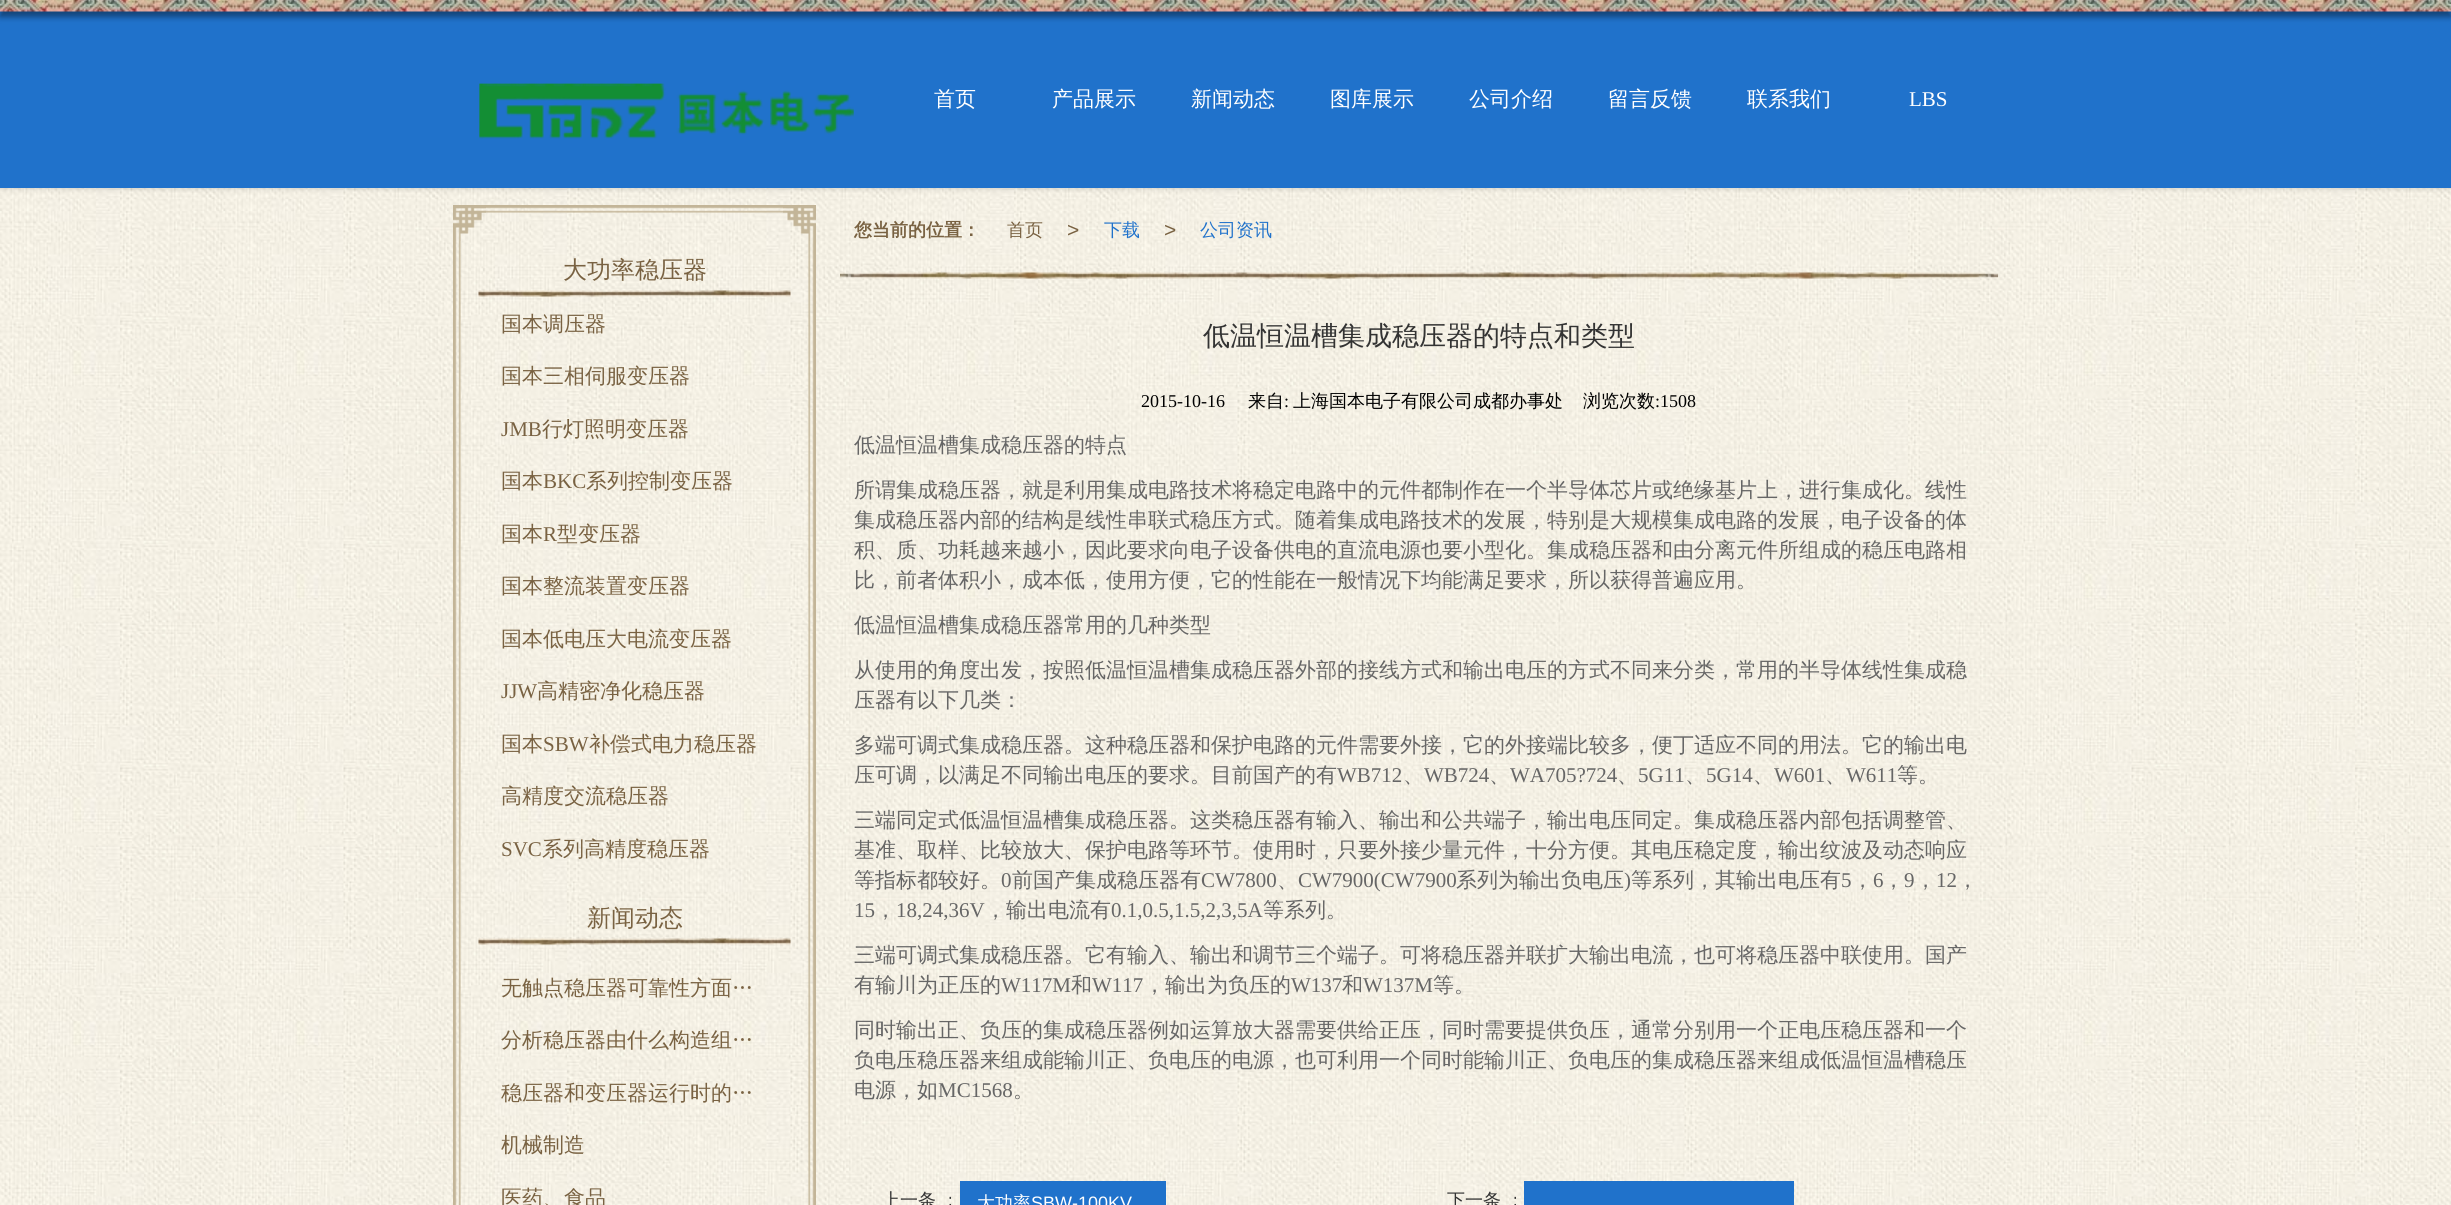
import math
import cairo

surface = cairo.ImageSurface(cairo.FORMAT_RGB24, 2451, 1205)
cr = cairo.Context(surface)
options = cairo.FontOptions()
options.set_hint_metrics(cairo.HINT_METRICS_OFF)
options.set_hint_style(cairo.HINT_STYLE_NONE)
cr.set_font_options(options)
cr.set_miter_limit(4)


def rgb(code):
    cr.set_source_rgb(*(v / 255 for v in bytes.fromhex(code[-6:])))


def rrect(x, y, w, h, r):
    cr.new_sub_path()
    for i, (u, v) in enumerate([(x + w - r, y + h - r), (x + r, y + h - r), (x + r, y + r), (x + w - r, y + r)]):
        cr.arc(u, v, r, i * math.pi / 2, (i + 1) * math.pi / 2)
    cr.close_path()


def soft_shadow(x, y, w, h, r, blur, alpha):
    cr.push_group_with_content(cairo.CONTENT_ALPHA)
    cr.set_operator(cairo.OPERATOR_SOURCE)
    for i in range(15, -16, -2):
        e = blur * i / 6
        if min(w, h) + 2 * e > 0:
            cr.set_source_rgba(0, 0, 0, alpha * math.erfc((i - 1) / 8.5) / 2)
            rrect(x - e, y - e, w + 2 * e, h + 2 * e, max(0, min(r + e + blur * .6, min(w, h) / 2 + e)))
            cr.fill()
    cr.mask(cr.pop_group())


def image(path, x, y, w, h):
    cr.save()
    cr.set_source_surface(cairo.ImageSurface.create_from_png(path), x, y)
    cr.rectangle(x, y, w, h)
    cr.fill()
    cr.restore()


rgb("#ffffff")
cr.paint()
image("img/1.png", 0, 188, 2451, 1017)
rgb("#2072cb")
cr.rectangle(0, 11, 2451, 177)
cr.fill()
cr.save()
cr.set_fill_rule(cairo.FILL_RULE_EVEN_ODD)
cr.new_path()
cr.move_to(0, 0)
cr.line_to(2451, 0)
cr.line_to(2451, 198)
cr.line_to(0, 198)
cr.close_path()
cr.move_to(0, -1)
cr.line_to(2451, -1)
cr.line_to(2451, 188)
cr.line_to(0, 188)
cr.close_path()
cr.clip()
rgb("#000000")
soft_shadow(2, -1, 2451, 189, 0, 3, 0.2)
cr.restore()
rgb("#000000")
soft_shadow(0, 3, 2451, 14, 0, 3, 0.4)
image("img/2.png", 0, 0, 2451, 12)
image("img/3.png", 479, 83, 375, 56)
image("img/4.png", 453, 241, 8, 964)
image("img/5.png", 453, 205, 363, 8)
image("img/6.png", 453, 207, 33, 34)
image("img/7.png", 783, 207, 33, 34)
image("img/8.png", 478, 290, 313, 8)
image("img/9.png", 808, 241, 8, 964)
image("img/10.png", 478, 938, 313, 7)
image("img/11.png", 840, 271, 1158, 9)
rgb("#2072cb")
cr.rectangle(960, 1181, 206, 24)
cr.fill()
cr.rectangle(1524, 1181, 270, 24)
cr.fill()
cr.select_font_face("WenQuanYi Zen Hei Medium")
cr.set_font_size(21)
rgb("#ffffff")
for x, y, s in [
    (934, 106, "首页"),
    (1052, 106, "产品展示"),
    (1191, 106, "新闻动态"),
    (1330, 106, "图库展示"),
    (1469, 106, "公司介绍"),
    (1608, 106, "留言反馈"),
    (1747, 106, "联系我们"),
]:
    cr.move_to(x, y)
    cr.show_text(s)
cr.select_font_face("Liberation Serif")
cr.move_to(1909, 106)
cr.show_text("LBS")
cr.select_font_face("WenQuanYi Zen Hei Medium")
cr.set_font_size(24)
rgb("#796242")
cr.move_to(563, 278)
cr.show_text("大功率稳压器")
cr.set_font_size(21)
cr.move_to(501, 331)
cr.show_text("国本调压器")
cr.move_to(501, 383)
cr.show_text("国本三相伺服变压器")
cr.select_font_face("Liberation Serif")
cr.move_to(501, 436)
cr.show_text("JMB")
cr.select_font_face("WenQuanYi Zen Hei Medium")
cr.move_to(542, 436)
cr.show_text("行灯照明变压器")
cr.move_to(501, 488)
cr.show_text("国本")
cr.select_font_face("Liberation Serif")
cr.move_to(543, 488)
cr.show_text("BKC")
cr.select_font_face("WenQuanYi Zen Hei Medium")
cr.move_to(586, 488)
cr.show_text("系列控制变压器")
cr.move_to(501, 541)
cr.show_text("国本")
cr.select_font_face("Liberation Serif")
cr.move_to(543, 541)
cr.show_text("R")
cr.select_font_face("WenQuanYi Zen Hei Medium")
for x, y, s in [
    (557, 541, "型变压器"),
    (501, 593, "国本整流装置变压器"),
    (501, 646, "国本低电压大电流变压器"),
]:
    cr.move_to(x, y)
    cr.show_text(s)
cr.select_font_face("Liberation Serif")
cr.move_to(501, 698)
cr.show_text("JJW")
cr.select_font_face("WenQuanYi Zen Hei Medium")
cr.move_to(537, 698)
cr.show_text("高精密净化稳压器")
cr.move_to(501, 751)
cr.show_text("国本")
cr.select_font_face("Liberation Serif")
cr.move_to(543, 751)
cr.show_text("SBW")
cr.select_font_face("WenQuanYi Zen Hei Medium")
cr.move_to(589, 751)
cr.show_text("补偿式电力稳压器")
cr.move_to(501, 803)
cr.show_text("高精度交流稳压器")
cr.select_font_face("Liberation Serif")
cr.move_to(501, 856)
cr.show_text("SVC")
cr.select_font_face("WenQuanYi Zen Hei Medium")
cr.move_to(542, 856)
cr.show_text("系列高精度稳压器")
cr.set_font_size(24)
cr.move_to(587, 926)
cr.show_text("新闻动态")
cr.set_font_size(21)
for x, y, s in [
    (501, 995, "无触点稳压器可靠性方面…"),
    (501, 1047, "分析稳压器由什么构造组…"),
    (501, 1100, "稳压器和变压器运行时的…"),
    (501, 1152, "机械制造"),
    (501, 1205, "医药、食品"),
]:
    cr.move_to(x, y)
    cr.show_text(s)
cr.select_font_face("WenQuanYi Zen Hei", cairo.FONT_SLANT_NORMAL, cairo.FONT_WEIGHT_BOLD)
cr.set_font_size(18)
cr.move_to(854, 236)
cr.show_text("您当前的位置：")
cr.select_font_face("WenQuanYi Zen Hei Medium")
cr.move_to(1007, 236)
cr.show_text("首页")
cr.select_font_face("Liberation Sans")
cr.set_font_size(21)
cr.move_to(1067, 237)
cr.show_text(">")
cr.select_font_face("WenQuanYi Zen Hei Medium")
cr.set_font_size(18)
rgb("#2072cb")
cr.move_to(1104, 236)
cr.show_text("下载")
cr.select_font_face("Liberation Sans")
cr.set_font_size(21)
rgb("#796242")
cr.move_to(1164, 237)
cr.show_text(">")
cr.select_font_face("WenQuanYi Zen Hei Medium")
cr.set_font_size(18)
rgb("#2072cb")
cr.move_to(1200, 236)
cr.show_text("公司资讯")
cr.set_font_size(27)
rgb("#333333")
cr.move_to(1203, 345)
cr.show_text("低温恒温槽集成稳压器的特点和类型")
cr.select_font_face("Liberation Serif")
cr.set_font_size(18)
rgb("#000000")
cr.move_to(1141, 407)
cr.show_text("2015-10-16")
cr.select_font_face("WenQuanYi Zen Hei Medium")
cr.move_to(1248, 407)
cr.show_text("来自")
cr.select_font_face("Liberation Serif")
cr.move_to(1284, 407)
cr.show_text(":")
cr.select_font_face("WenQuanYi Zen Hei Medium")
cr.move_to(1293, 407)
cr.show_text("上海国本电子有限公司成都办事处")
cr.move_to(1583, 407)
cr.show_text("浏览次数")
cr.select_font_face("Liberation Serif")
cr.move_to(1655, 407)
cr.show_text(":1508")
cr.select_font_face("WenQuanYi Zen Hei Medium")
cr.set_font_size(21)
rgb("#666666")
for x, y, s in [
    (854, 452, "低温恒温槽集成稳压器的特点"),
    (854, 497, "所谓集成稳压器，就是利用集成电路技术将稳定电路中的元件都制作在一个半导体芯片或绝缘基片上，进行集成化。线性"),
    (854, 527, "集成稳压器内部的结构是线性串联式稳压方式。随着集成电路技术的发展，特别是大规模集成电路的发展，电子设备的体"),
    (854, 557, "积、质、功耗越来越小，因此要求向电子设备供电的直流电源也要小型化。集成稳压器和由分离元件所组成的稳压电路相"),
    (854, 587, "比，前者体积小，成本低，使用方便，它的性能在一般情况下均能满足要求，所以获得普遍应用。"),
    (854, 632, "低温恒温槽集成稳压器常用的几种类型"),
    (854, 677, "从使用的角度出发，按照低温恒温槽集成稳压器外部的接线方式和输出电压的方式不同来分类，常用的半导体线性集成稳"),
    (854, 707, "压器有以下几类："),
    (854, 752, "多端可调式集成稳压器。这种稳压器和保护电路的元件需要外接，它的外接端比较多，便丁适应不同的用法。它的输出电"),
    (854, 782, "压可调，以满足不同输出电压的要求。目前国产的有"),
]:
    cr.move_to(x, y)
    cr.show_text(s)
cr.select_font_face("Liberation Serif")
cr.move_to(1337, 782)
cr.show_text("WB712")
cr.select_font_face("WenQuanYi Zen Hei Medium")
cr.move_to(1403, 782)
cr.show_text("、")
cr.select_font_face("Liberation Serif")
cr.move_to(1424, 782)
cr.show_text("WB724")
cr.select_font_face("WenQuanYi Zen Hei Medium")
cr.move_to(1489, 782)
cr.show_text("、")
cr.select_font_face("Liberation Serif")
cr.move_to(1510, 782)
cr.show_text("WA705?724")
cr.select_font_face("WenQuanYi Zen Hei Medium")
cr.move_to(1617, 782)
cr.show_text("、")
cr.select_font_face("Liberation Serif")
cr.move_to(1638, 782)
cr.show_text("5G11")
cr.select_font_face("WenQuanYi Zen Hei Medium")
cr.move_to(1685, 782)
cr.show_text("、")
cr.select_font_face("Liberation Serif")
cr.move_to(1706, 782)
cr.show_text("5G14")
cr.select_font_face("WenQuanYi Zen Hei Medium")
cr.move_to(1753, 782)
cr.show_text("、")
cr.select_font_face("Liberation Serif")
cr.move_to(1774, 782)
cr.show_text("W601")
cr.select_font_face("WenQuanYi Zen Hei Medium")
cr.move_to(1825, 782)
cr.show_text("、")
cr.select_font_face("Liberation Serif")
cr.move_to(1846, 782)
cr.show_text("W611")
cr.select_font_face("WenQuanYi Zen Hei Medium")
for x, y, s in [
    (1897, 782, "等。"),
    (854, 827, "三端同定式低温恒温槽集成稳压器。这类稳压器有输入、输出和公共端子，输出电压同定。集成稳压器内部包括调整管、"),
    (854, 857, "基准、取样、比较放大、保护电路等环节。使用时，只要外接少量元件，十分方便。其电压稳定度，输出纹波及动态响应"),
    (854, 887, "等指标都较好。"),
]:
    cr.move_to(x, y)
    cr.show_text(s)
cr.select_font_face("Liberation Serif")
cr.move_to(1001, 887)
cr.show_text("0")
cr.select_font_face("WenQuanYi Zen Hei Medium")
cr.move_to(1012, 887)
cr.show_text("前国产集成稳压器有")
cr.select_font_face("Liberation Serif")
cr.move_to(1201, 887)
cr.show_text("CW7800")
cr.select_font_face("WenQuanYi Zen Hei Medium")
cr.move_to(1277, 887)
cr.show_text("、")
cr.select_font_face("Liberation Serif")
cr.move_to(1298, 887)
cr.show_text("CW7900(CW7900")
cr.select_font_face("WenQuanYi Zen Hei Medium")
cr.move_to(1456, 887)
cr.show_text("系列为输出负电压")
cr.select_font_face("Liberation Serif")
cr.move_to(1624, 887)
cr.show_text(")")
cr.select_font_face("WenQuanYi Zen Hei Medium")
cr.move_to(1631, 887)
cr.show_text("等系列，其输出电压有")
cr.select_font_face("Liberation Serif")
cr.move_to(1841, 887)
cr.show_text("5")
cr.select_font_face("WenQuanYi Zen Hei Medium")
cr.move_to(1852, 887)
cr.show_text("，")
cr.select_font_face("Liberation Serif")
cr.move_to(1873, 887)
cr.show_text("6")
cr.select_font_face("WenQuanYi Zen Hei Medium")
cr.move_to(1883, 887)
cr.show_text("，")
cr.select_font_face("Liberation Serif")
cr.move_to(1904, 887)
cr.show_text("9")
cr.select_font_face("WenQuanYi Zen Hei Medium")
cr.move_to(1915, 887)
cr.show_text("，")
cr.select_font_face("Liberation Serif")
cr.move_to(1936, 887)
cr.show_text("12")
cr.select_font_face("WenQuanYi Zen Hei Medium")
cr.move_to(1957, 887)
cr.show_text("，")
cr.select_font_face("Liberation Serif")
cr.move_to(854, 917)
cr.show_text("15")
cr.select_font_face("WenQuanYi Zen Hei Medium")
cr.move_to(875, 917)
cr.show_text("，")
cr.select_font_face("Liberation Serif")
cr.move_to(896, 917)
cr.show_text("18,24,36V")
cr.select_font_face("WenQuanYi Zen Hei Medium")
cr.move_to(985, 917)
cr.show_text("，输出电流有")
cr.select_font_face("Liberation Serif")
cr.move_to(1111, 917)
cr.show_text("0.1,0.5,1.5,2,3,5A")
cr.select_font_face("WenQuanYi Zen Hei Medium")
for x, y, s in [
    (1263, 917, "等系列。"),
    (854, 962, "三端可调式集成稳压器。它有输入、输出和调节三个端子。可将稳压器并联扩大输出电流，也可将稳压器中联使用。国产"),
    (854, 992, "有输川为正压的"),
]:
    cr.move_to(x, y)
    cr.show_text(s)
cr.select_font_face("Liberation Serif")
cr.move_to(1001, 992)
cr.show_text("W117M")
cr.select_font_face("WenQuanYi Zen Hei Medium")
cr.move_to(1071, 992)
cr.show_text("和")
cr.select_font_face("Liberation Serif")
cr.move_to(1092, 992)
cr.show_text("W117")
cr.select_font_face("WenQuanYi Zen Hei Medium")
cr.move_to(1144, 992)
cr.show_text("，输出为负压的")
cr.select_font_face("Liberation Serif")
cr.move_to(1291, 992)
cr.show_text("W137")
cr.select_font_face("WenQuanYi Zen Hei Medium")
cr.move_to(1342, 992)
cr.show_text("和")
cr.select_font_face("Liberation Serif")
cr.move_to(1363, 992)
cr.show_text("W137M")
cr.select_font_face("WenQuanYi Zen Hei Medium")
for x, y, s in [
    (1433, 992, "等。"),
    (854, 1037, "同时输出正、负压的集成稳压器例如运算放大器需要供给正压，同时需要提供负压，通常分别用一个正电压稳压器和一个"),
    (854, 1067, "负电压稳压器来组成能输川正、负电压的电源，也可利用一个同时能输川正、负电压的集成稳压器来组成低温恒温槽稳压"),
    (854, 1097, "电源，如"),
]:
    cr.move_to(x, y)
    cr.show_text(s)
cr.select_font_face("Liberation Serif")
cr.move_to(938, 1097)
cr.show_text("MC1568")
cr.select_font_face("WenQuanYi Zen Hei Medium")
cr.move_to(1013, 1097)
cr.show_text("。")
cr.set_font_size(18)
rgb("#333333")
cr.move_to(882, 1206)
cr.show_text("上一条 ：")
rgb("#ffffff")
cr.move_to(977, 1209)
cr.show_text("大功率")
cr.select_font_face("Liberation Sans")
cr.move_to(1031, 1209)
cr.show_text("SBW-100KV")
cr.select_font_face("WenQuanYi Zen Hei Medium")
rgb("#333333")
cr.move_to(1447, 1206)
cr.show_text("下一条 ：")
surface.write_to_png("page.png")
